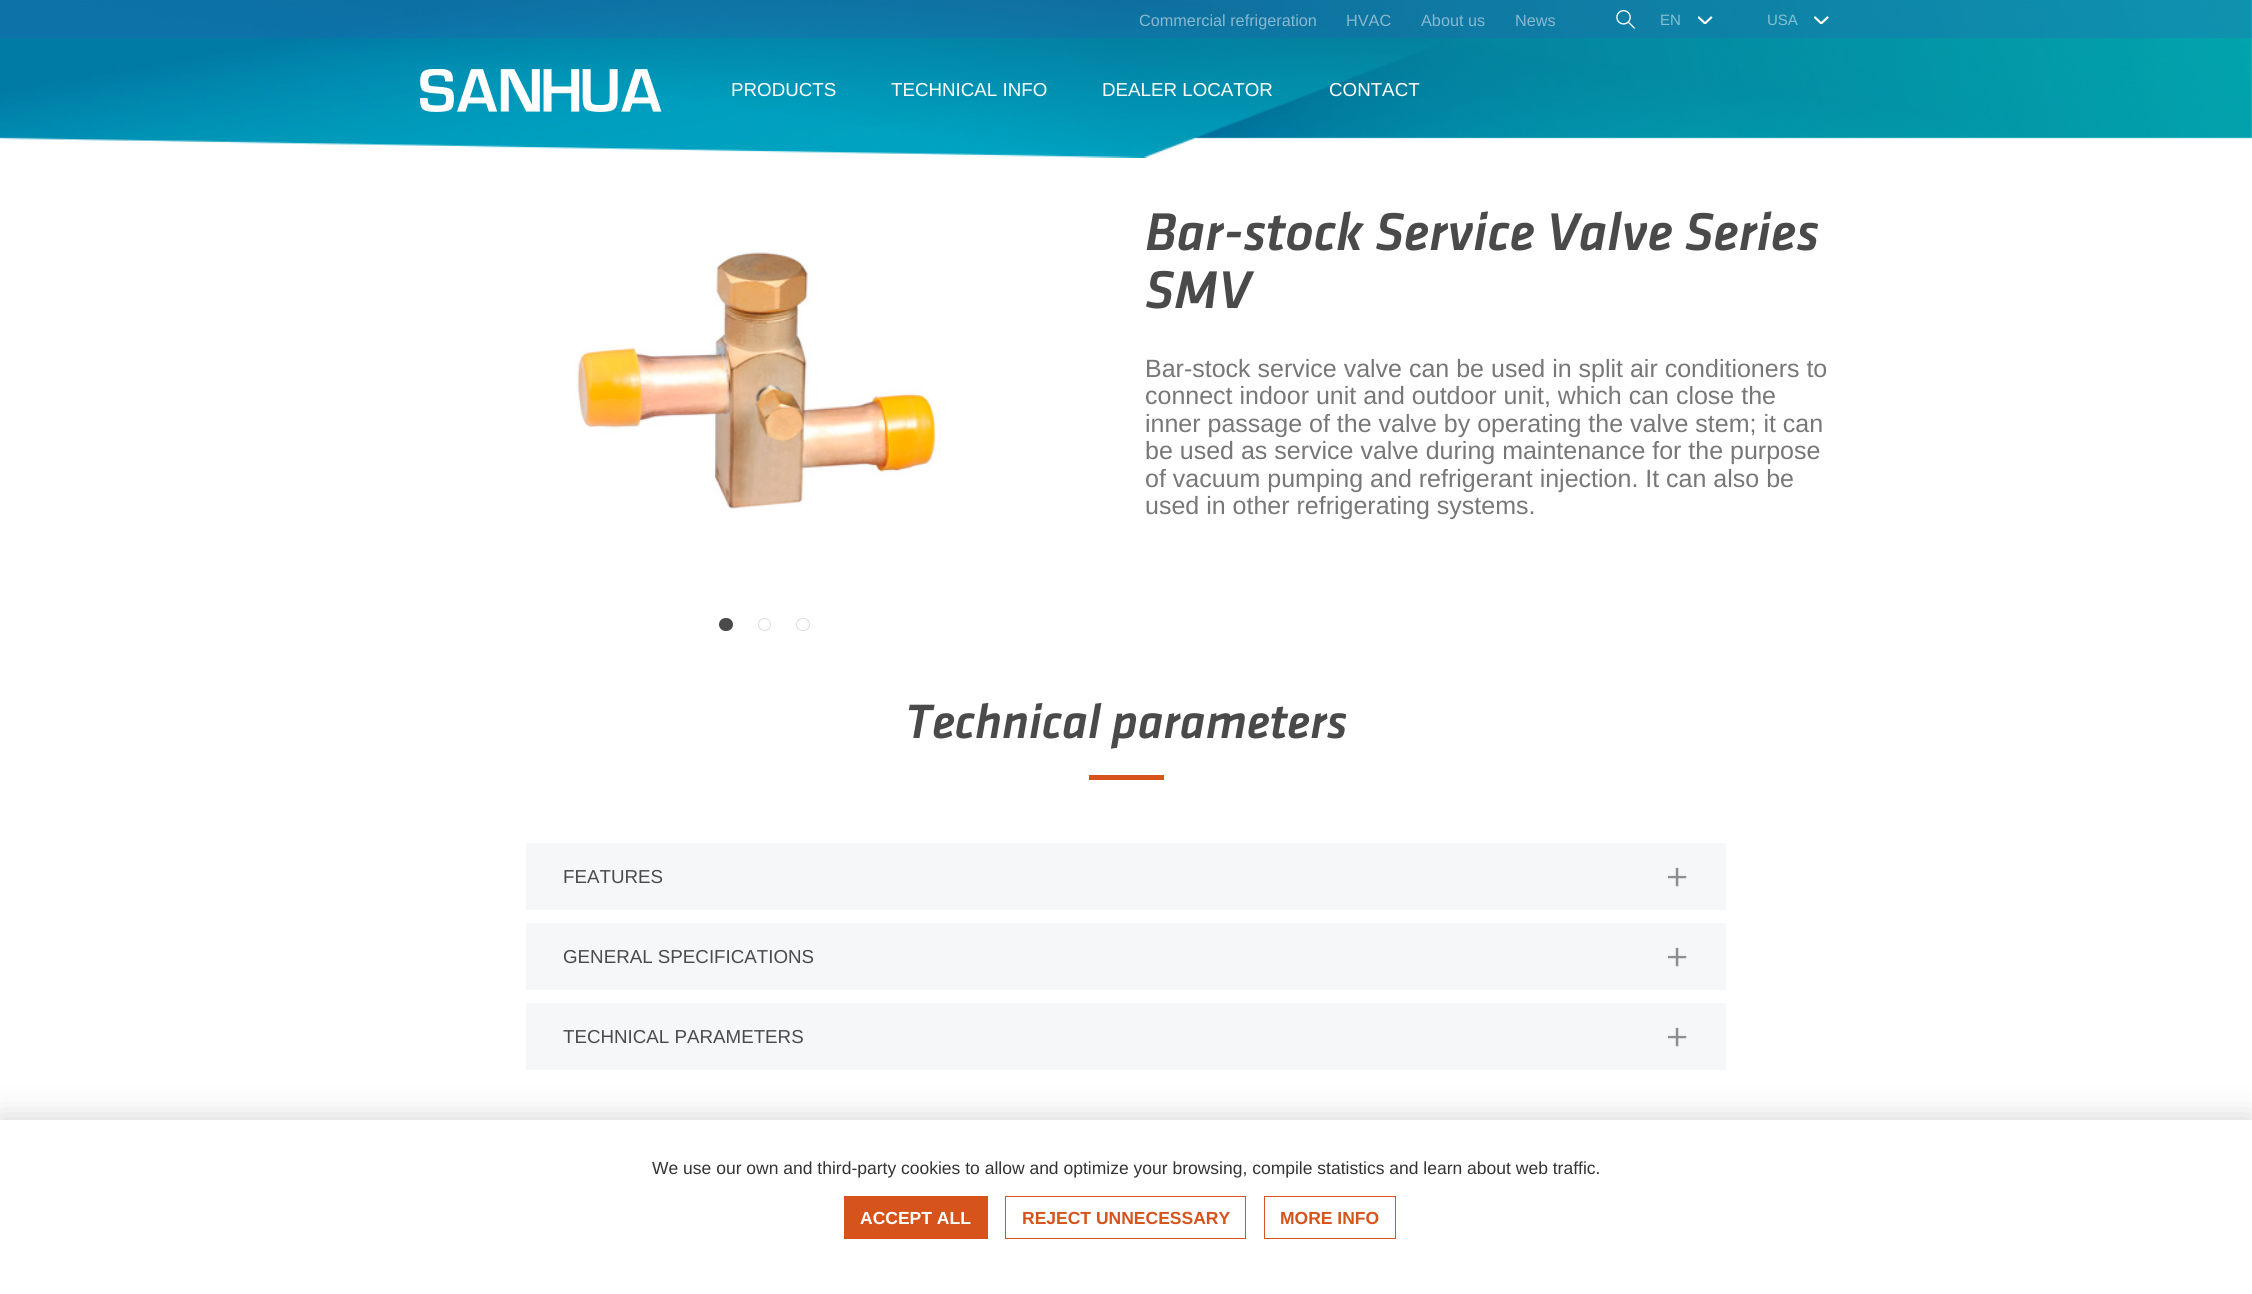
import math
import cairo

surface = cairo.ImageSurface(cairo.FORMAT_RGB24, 2252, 1294)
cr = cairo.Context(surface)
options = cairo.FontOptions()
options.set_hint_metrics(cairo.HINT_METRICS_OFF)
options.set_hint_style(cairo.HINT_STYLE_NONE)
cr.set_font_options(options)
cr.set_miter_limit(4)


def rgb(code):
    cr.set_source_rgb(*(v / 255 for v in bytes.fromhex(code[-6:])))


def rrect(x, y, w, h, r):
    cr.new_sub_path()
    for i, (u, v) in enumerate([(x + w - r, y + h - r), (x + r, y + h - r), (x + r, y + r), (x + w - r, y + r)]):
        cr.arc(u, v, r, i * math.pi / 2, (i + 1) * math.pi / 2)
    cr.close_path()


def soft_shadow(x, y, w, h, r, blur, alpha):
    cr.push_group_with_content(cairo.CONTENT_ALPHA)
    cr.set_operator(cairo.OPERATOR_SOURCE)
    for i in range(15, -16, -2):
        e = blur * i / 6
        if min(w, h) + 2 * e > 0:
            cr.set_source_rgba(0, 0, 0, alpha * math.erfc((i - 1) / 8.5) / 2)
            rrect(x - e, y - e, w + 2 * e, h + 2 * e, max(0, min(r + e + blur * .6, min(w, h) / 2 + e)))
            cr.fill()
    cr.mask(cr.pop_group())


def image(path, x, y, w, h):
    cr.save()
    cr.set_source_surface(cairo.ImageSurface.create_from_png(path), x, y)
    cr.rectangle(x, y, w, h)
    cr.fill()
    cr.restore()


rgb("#ffffff")
cr.paint()
image("img/1.png", 0, 0, 2252, 158)
cr.set_source_rgba(0.247, 0.318, 0.71, 0.2)
cr.rectangle(0, 0, 2252, 38)
cr.fill()
image("img/2.png", 1616, 10, 19, 19)
image("img/3.png", 1698, 16, 15, 8)
image("img/4.png", 1814, 16, 15, 8)
image("img/5.png", 420, 69, 242, 43)
image("img/6.png", 575, 250, 367, 260)
rgb("#4a4a4a")
rrect(719, 618, 14, 13, 6.5)
cr.fill()
cr.arc(764.5, 624.5, 6, 0, 2 * math.pi)
rgb("#dcdedf")
cr.set_line_width(1)
cr.stroke()
rrect(796.5, 618.5, 13, 12, 6)
cr.stroke()
for x, y, w, h, color in [
    (1089, 775, 75, 5, "#d6541b"),
    (526, 843, 1200, 67, "#f5f7f8"),
    (526, 923, 1200, 67, "#f5f7f8"),
    (526, 1003, 1200, 67, "#f5f7f8"),
]:
    rgb(color)
    cr.rectangle(x, y, w, h)
    cr.fill()
rgb("#000000")
soft_shadow(0, 1120, 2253, 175, 0, 16, 0.19)
rgb("#ffffff")
cr.rectangle(0, 1120, 2252, 174)
cr.fill()
rgb("#d6541b")
cr.rectangle(844, 1196, 144, 43)
cr.fill()
cr.rectangle(1005.5, 1196.5, 240, 42)
cr.stroke()
cr.rectangle(1264.5, 1196.5, 131, 42)
cr.stroke()
cr.select_font_face("Liberation Sans")
cr.set_font_size(16.25)
rgb("#87b9d0")
for x, y, s in [
    (1139, 26, "Commercial refrigeration"),
    (1346, 26, "HVAC"),
    (1421, 26, "About us"),
    (1515, 26, "News"),
]:
    cr.move_to(x, y)
    cr.show_text(s)
cr.set_font_size(15)
rgb("#87c0d3")
cr.move_to(1660, 25)
cr.show_text("EN")
cr.move_to(1767, 25)
cr.show_text("USA")
cr.set_font_size(18.75)
rgb("#ffffff")
for x, y, s in [
    (731, 96, "PRODUCTS"),
    (891, 96, "TECHNICAL INFO"),
    (1102, 96, "DEALER LOCATOR"),
    (1329, 96, "CONTACT"),
]:
    cr.move_to(x, y)
    cr.show_text(s)
cr.select_font_face("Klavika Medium", cairo.FONT_SLANT_ITALIC)
cr.set_font_size(55)
rgb("#4a4a4a")
cr.move_to(1145, 250)
cr.show_text("Bar-stock Service Valve Series")
cr.move_to(1145, 308)
cr.show_text("SMV")
cr.select_font_face("Liberation Sans")
cr.set_font_size(25)
rgb("#777777")
for x, y, s in [
    (1145, 377, "Bar-stock service valve can be used in split air conditioners to"),
    (1145, 404, "connect indoor unit and outdoor unit, which can close the"),
    (1145, 432, "inner passage of the valve by operating the valve stem; it can"),
    (1145, 459, "be used as service valve during maintenance for the purpose"),
    (1145, 487, "of vacuum pumping and refrigerant injection. It can also be"),
    (1145, 514, "used in other refrigerating systems."),
]:
    cr.move_to(x, y)
    cr.show_text(s)
cr.select_font_face("Klavika Medium", cairo.FONT_SLANT_ITALIC)
cr.set_font_size(50)
rgb("#4a4a4a")
cr.move_to(905, 738)
cr.show_text("Technical parameters")
cr.select_font_face("Liberation Sans")
cr.set_font_size(18.75)
cr.move_to(563, 883)
cr.show_text("FEATURES")
cr.select_font_face("Klavika Light")
cr.set_font_size(45)
rgb("#8e8f90")
cr.move_to(1665, 888)
cr.show_text("+")
cr.select_font_face("Liberation Sans")
cr.set_font_size(18.75)
rgb("#4a4a4a")
cr.move_to(563, 963)
cr.show_text("GENERAL SPECIFICATIONS")
cr.select_font_face("Klavika Light")
cr.set_font_size(45)
rgb("#8e8f90")
cr.move_to(1665, 968)
cr.show_text("+")
cr.select_font_face("Liberation Sans")
cr.set_font_size(18.75)
rgb("#4a4a4a")
cr.move_to(563, 1043)
cr.show_text("TECHNICAL PARAMETERS")
cr.select_font_face("Klavika Light")
cr.set_font_size(45)
rgb("#8e8f90")
cr.move_to(1665, 1048)
cr.show_text("+")
cr.select_font_face("Liberation Sans")
cr.set_font_size(17.5)
rgb("#333333")
cr.move_to(652, 1174)
cr.show_text("We use our own and third-party cookies to allow and optimize your browsing, compile statistics and learn about web traffic.")
cr.select_font_face("Liberation Sans", cairo.FONT_SLANT_NORMAL, cairo.FONT_WEIGHT_BOLD)
rgb("#ffffff")
cr.move_to(860, 1224)
cr.show_text("ACCEPT ALL")
rgb("#d6541b")
cr.move_to(1022, 1224)
cr.show_text("REJECT UNNECESSARY")
cr.move_to(1280, 1224)
cr.show_text("MORE INFO")
surface.write_to_png("page.png")
